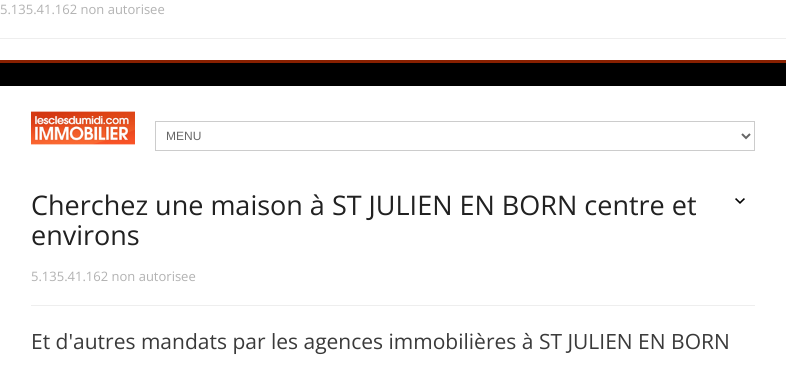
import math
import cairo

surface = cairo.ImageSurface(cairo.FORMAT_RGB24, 786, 374)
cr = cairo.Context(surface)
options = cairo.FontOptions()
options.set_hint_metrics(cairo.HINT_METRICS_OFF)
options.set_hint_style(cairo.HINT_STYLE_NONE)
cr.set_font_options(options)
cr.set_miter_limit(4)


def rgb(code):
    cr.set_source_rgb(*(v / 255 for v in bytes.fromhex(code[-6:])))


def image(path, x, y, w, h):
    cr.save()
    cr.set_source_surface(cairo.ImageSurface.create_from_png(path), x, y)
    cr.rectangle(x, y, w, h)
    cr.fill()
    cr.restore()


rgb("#ffffff")
cr.paint()
for x, y, w, h, color in [
    (0, 38, 786, 1, "#eeeeee"),
    (0, 63, 786, 23, "#000000"),
    (0, 60, 786, 3, "#882000"),
]:
    rgb(color)
    cr.rectangle(x, y, w, h)
    cr.fill()
image("img/1.png", 31, 111, 104, 34)
cr.rectangle(155.5, 121.5, 599, 29)
rgb("#cccccc")
cr.set_line_width(1)
cr.stroke()
cr.new_path()
cr.move_to(742, 134)
cr.line_to(746, 138)
cr.line_to(750, 134)
rgb("#666666")
cr.set_line_width(2)
cr.stroke()
image("img/2.png", 735, 198, 10, 6)
rgb("#eeeeee")
cr.rectangle(31, 305, 724, 1)
cr.fill()
cr.select_font_face("Open Sans")
cr.set_font_size(13)
rgb("#b2b2b2")
cr.move_to(0, 14)
cr.show_text("5.135.41.162 non autorisee")
cr.select_font_face("Liberation Sans")
cr.set_font_size(12)
rgb("#666666")
cr.move_to(166, 140)
cr.show_text("MENU")
cr.select_font_face("Open Sans")
cr.set_font_size(27)
rgb("#212121")
cr.move_to(31, 215)
cr.show_text("Cherchez une maison à ST JULIEN EN BORN centre et")
cr.move_to(31, 245)
cr.show_text("environs")
cr.set_font_size(13)
rgb("#b2b2b2")
cr.move_to(31, 281)
cr.show_text("5.135.41.162 non autorisee")
cr.set_font_size(21)
rgb("#3a3a3a")
cr.move_to(31, 349)
cr.show_text("Et d'autres mandats par les agences immobilières à ST JULIEN EN BORN")
surface.write_to_png("page.png")
